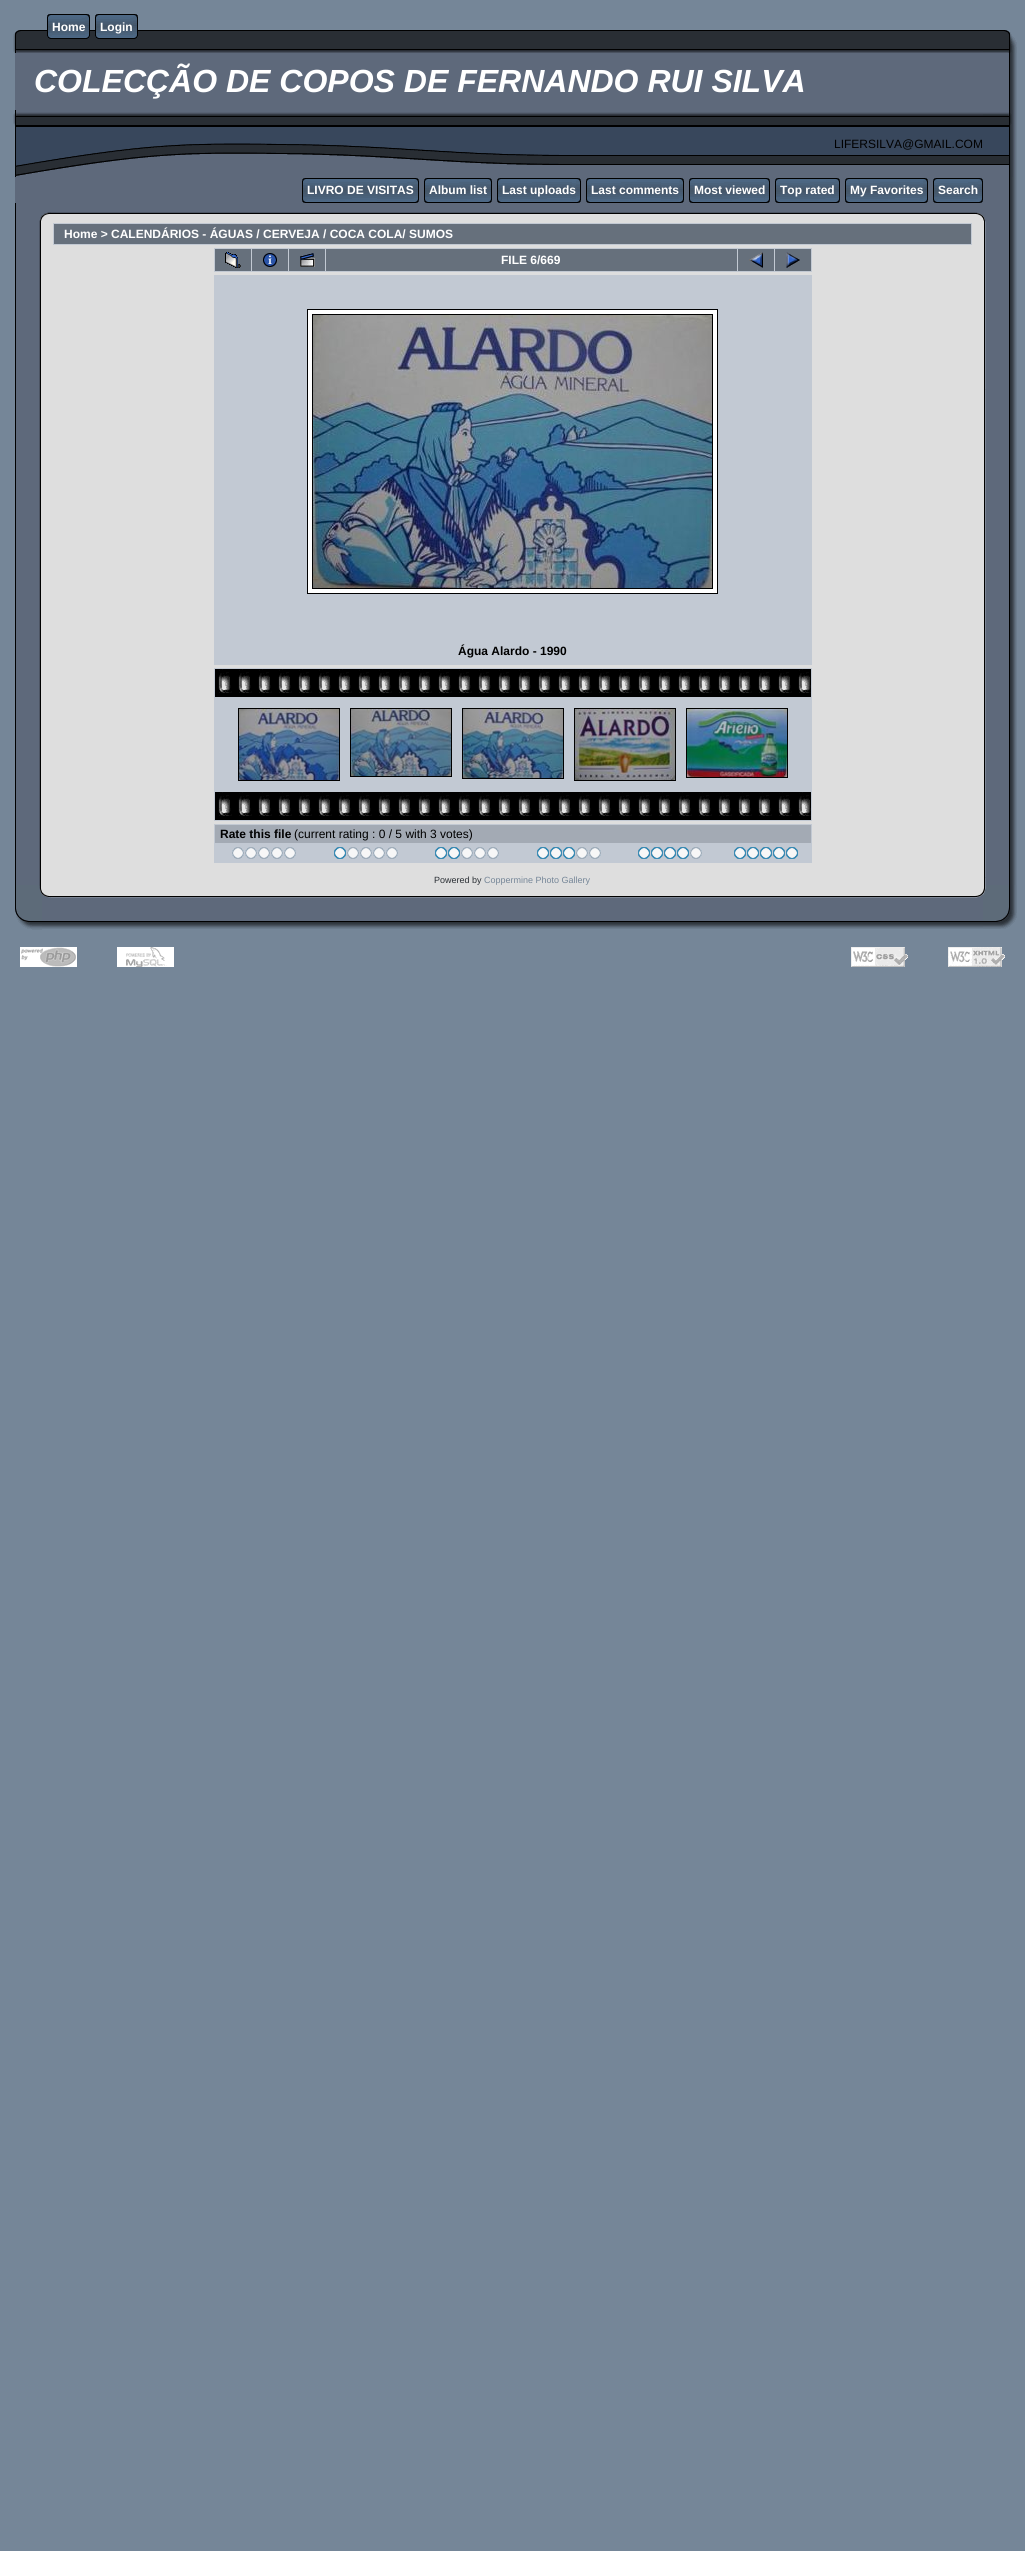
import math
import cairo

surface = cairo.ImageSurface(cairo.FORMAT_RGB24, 1025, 2551)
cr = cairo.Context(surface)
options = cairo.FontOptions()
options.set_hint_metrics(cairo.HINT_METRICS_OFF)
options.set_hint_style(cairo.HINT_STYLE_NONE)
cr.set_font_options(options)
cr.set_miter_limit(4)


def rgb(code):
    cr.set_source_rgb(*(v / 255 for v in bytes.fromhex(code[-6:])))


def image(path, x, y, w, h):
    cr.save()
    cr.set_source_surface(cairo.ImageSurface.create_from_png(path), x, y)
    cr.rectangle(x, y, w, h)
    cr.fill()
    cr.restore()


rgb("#758698")
cr.paint()
image("img/1.png", 42, 30, 941, 23)
image("img/2.png", 47, 14, 5, 25)
image("img/3.png", 52, 14, 33, 25)
image("img/4.png", 85, 14, 5, 25)
image("img/2.png", 95, 14, 5, 25)
image("img/5.png", 100, 14, 33, 25)
image("img/4.png", 133, 14, 5, 25)
image("img/6.png", 13, 30, 29, 23)
image("img/7.png", 983, 30, 34, 23)
rgb("#5e697b")
cr.rectangle(15, 53, 994, 57)
cr.fill()
image("img/8.png", 1009, 53, 8, 57)
image("img/9.png", 13, 110, 547, 67)
image("img/10.png", 560, 110, 423, 67)
image("img/11.png", 983, 110, 34, 67)
cr.rectangle(15, 177, 968, 26)
cr.fill()
image("img/12.png", 983, 177, 34, 26)
image("img/13.png", 302, 178, 5, 25)
image("img/14.png", 307, 178, 107, 25)
image("img/15.png", 414, 178, 5, 25)
image("img/13.png", 424, 178, 5, 25)
image("img/16.png", 429, 178, 58, 25)
image("img/15.png", 487, 178, 5, 25)
image("img/13.png", 497, 178, 5, 25)
image("img/17.png", 502, 178, 74, 25)
image("img/15.png", 576, 178, 5, 25)
image("img/13.png", 586, 178, 5, 25)
image("img/18.png", 591, 178, 88, 25)
image("img/15.png", 679, 178, 5, 25)
image("img/13.png", 689, 178, 5, 25)
image("img/19.png", 694, 178, 71, 25)
image("img/15.png", 765, 178, 5, 25)
image("img/13.png", 775, 178, 5, 25)
image("img/20.png", 780, 178, 55, 25)
image("img/15.png", 835, 178, 5, 25)
image("img/13.png", 845, 178, 5, 25)
image("img/21.png", 850, 178, 73, 25)
image("img/15.png", 923, 178, 5, 25)
image("img/13.png", 933, 178, 5, 25)
image("img/22.png", 938, 178, 40, 25)
image("img/15.png", 978, 178, 5, 25)
image("img/23.png", 15, 203, 27, 18)
image("img/24.png", 42, 203, 14, 18)
image("img/25.png", 56, 203, 913, 18)
image("img/26.png", 969, 203, 14, 18)
image("img/27.png", 983, 203, 34, 18)
image("img/28.png", 15, 221, 27, 664)
for x, y, w, h, color in [
    (42, 221, 941, 664, "#dedede"),
    (53, 223, 919, 22, "#c2c9d3"),
    (54, 224, 917, 20, "#66707c"),
    (214, 248, 598, 24, "#c2c9d3"),
    (215, 249, 36, 22, "#66707c"),
]:
    rgb(color)
    cr.rectangle(x, y, w, h)
    cr.fill()
image("img/29.png", 225, 252, 16, 16)
cr.rectangle(252, 249, 36, 22)
cr.fill()
image("img/30.png", 263, 253, 14, 14)
cr.rectangle(289, 249, 36, 22)
cr.fill()
image("img/31.png", 300, 253, 15, 14)
cr.rectangle(326, 249, 411, 22)
cr.fill()
cr.rectangle(738, 249, 36, 22)
cr.fill()
image("img/32.png", 749, 252, 14, 16)
cr.rectangle(775, 249, 36, 22)
cr.fill()
image("img/33.png", 786, 252, 14, 16)
rgb("#c2c9d3")
cr.rectangle(214, 275, 598, 390)
cr.fill()
rgb("#ffffff")
cr.rectangle(307.5, 309.5, 410, 284)
cr.fill_preserve()
rgb("#000000")
cr.set_line_width(1)
cr.stroke()
cr.rectangle(312.5, 314.5, 400, 274)
cr.stroke()
image("img/34.png", 313, 315, 399, 273)
rgb("#c2c9d3")
cr.rectangle(214, 668, 598, 153)
cr.fill()
image("img/35.png", 215, 669, 596, 28)
cr.rectangle(238.5, 708.5, 101, 72)
rgb("#000000")
cr.stroke()
image("img/36.png", 239, 709, 100, 71)
cr.rectangle(350.5, 708.5, 101, 68)
cr.stroke()
image("img/37.png", 351, 709, 100, 67)
cr.rectangle(462.5, 708.5, 101, 70)
cr.stroke()
image("img/38.png", 463, 709, 100, 69)
cr.rectangle(574.5, 708.5, 101, 72)
cr.stroke()
image("img/39.png", 575, 709, 100, 71)
cr.rectangle(686.5, 708.5, 101, 69)
cr.stroke()
image("img/40.png", 687, 709, 100, 68)
image("img/35.png", 215, 792, 596, 28)
rgb("#c2c9d3")
cr.rectangle(214, 824, 598, 39)
cr.fill()
rgb("#a3aab4")
cr.rectangle(215, 825, 596, 18)
cr.fill()
image("img/41.png", 232, 847, 64, 12)
image("img/42.png", 334, 847, 64, 12)
image("img/43.png", 435, 847, 64, 12)
image("img/44.png", 537, 847, 64, 12)
image("img/45.png", 638, 847, 64, 12)
image("img/46.png", 734, 847, 64, 12)
image("img/47.png", 983, 221, 34, 664)
image("img/48.png", 985, 389, 1, 161)
image("img/49.png", 15, 885, 27, 45)
image("img/50.png", 42, 885, 208, 44)
image("img/51.png", 250, 885, 525, 44)
image("img/52.png", 775, 885, 208, 44)
image("img/53.png", 983, 885, 34, 44)
image("img/54.png", 20, 947, 57, 20)
image("img/55.png", 117, 947, 57, 20)
image("img/56.png", 851, 947, 57, 20)
image("img/57.png", 948, 947, 57, 20)
cr.select_font_face("Liberation Sans", cairo.FONT_SLANT_NORMAL, cairo.FONT_WEIGHT_BOLD)
cr.set_font_size(12)
rgb("#ffffff")
cr.move_to(52, 31)
cr.show_text("Home")
cr.move_to(100, 31)
cr.show_text("Login")
cr.select_font_face("Liberation Sans", cairo.FONT_SLANT_ITALIC, cairo.FONT_WEIGHT_BOLD)
cr.set_font_size(32)
cr.move_to(34, 92)
cr.show_text("COLECÇÃO DE COPOS DE FERNANDO RUI SILVA")
cr.select_font_face("Liberation Sans")
cr.set_font_size(12)
rgb("#000000")
cr.move_to(834, 148)
cr.show_text("LIFERSILVA@GMAIL.COM")
cr.select_font_face("Liberation Sans", cairo.FONT_SLANT_NORMAL, cairo.FONT_WEIGHT_BOLD)
rgb("#ffffff")
for x, y, s in [
    (307, 194, "LIVRO DE VISITAS"),
    (429, 194, "Album list"),
    (502, 194, "Last uploads"),
    (591, 194, "Last comments"),
    (694, 194, "Most viewed"),
    (780, 194, "Top rated"),
    (850, 194, "My Favorites"),
    (938, 194, "Search"),
    (64, 238, "Home > CALENDÁRIOS - ÁGUAS / CERVEJA / COCA COLA/ SUMOS"),
    (501, 264, "FILE 6/669"),
]:
    cr.move_to(x, y)
    cr.show_text(s)
rgb("#000000")
cr.move_to(458, 655)
cr.show_text("Água Alardo - 1990")
cr.move_to(220, 838)
cr.show_text("Rate this file")
cr.select_font_face("Liberation Sans")
cr.move_to(294, 838)
cr.show_text("(current rating : 0 / 5 with 3 votes)")
cr.set_font_size(9)
rgb("#292e34")
cr.move_to(434, 883)
cr.show_text("Powered by")
rgb("#758698")
cr.move_to(484, 883)
cr.show_text("Coppermine Photo Gallery")
surface.write_to_png("page.png")
